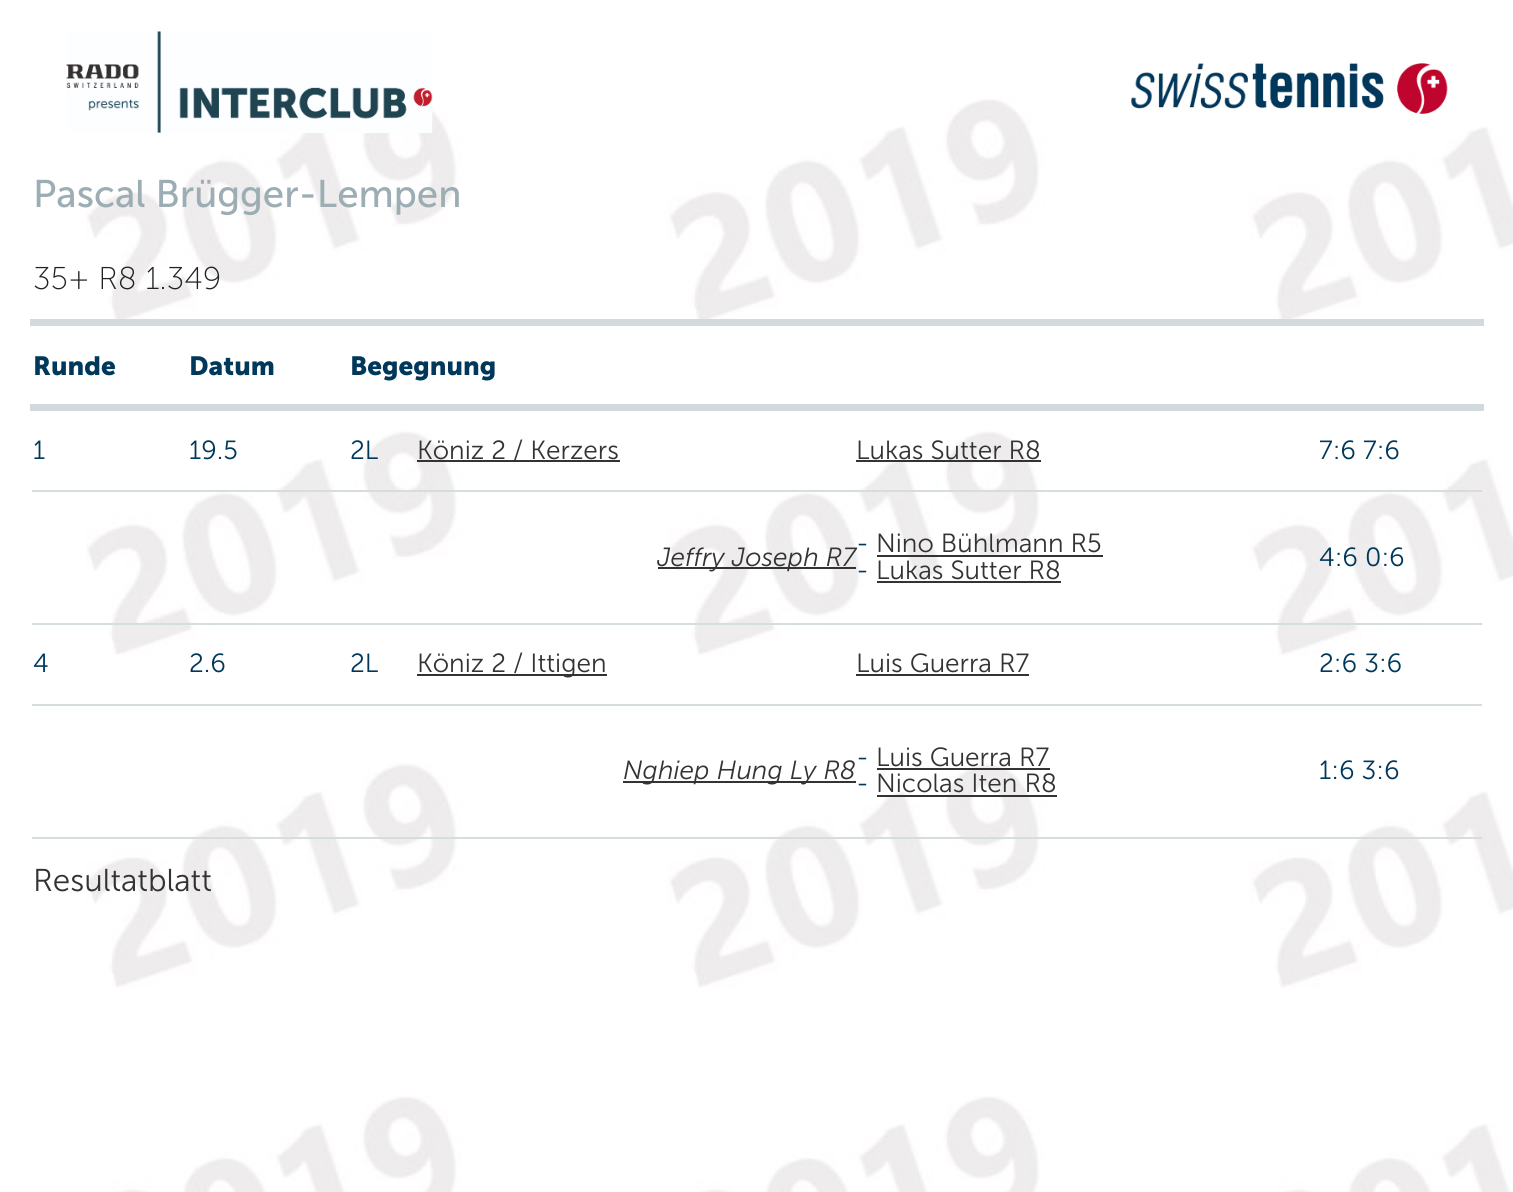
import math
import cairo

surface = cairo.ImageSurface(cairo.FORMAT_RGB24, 1513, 1192)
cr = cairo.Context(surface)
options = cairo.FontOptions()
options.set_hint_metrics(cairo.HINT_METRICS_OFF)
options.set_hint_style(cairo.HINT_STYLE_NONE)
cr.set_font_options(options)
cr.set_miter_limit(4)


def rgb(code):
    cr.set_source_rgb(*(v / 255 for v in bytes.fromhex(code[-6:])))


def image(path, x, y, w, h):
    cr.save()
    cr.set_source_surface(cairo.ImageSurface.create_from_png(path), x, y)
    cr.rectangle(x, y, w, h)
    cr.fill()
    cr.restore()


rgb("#ffffff")
cr.paint()
image("img/1.png", 86, 99, 1427, 1093)
image("img/2.png", 66, 31, 367, 102)
image("img/3.png", 1131, 63, 317, 51)
for x, y, w, h, color in [
    (30, 319, 1454, 7, "#d2dadd"),
    (30, 404, 1454, 7, "#d2dadd"),
    (417, 460, 203, 2, "#333333"),
    (856, 460, 185, 2, "#333333"),
    (32, 490, 1450, 2, "#d5dde0"),
    (658, 567, 198, 2, "#333333"),
    (877, 555, 226, 2, "#333333"),
    (877, 581, 184, 2, "#333333"),
    (32, 623, 1450, 2, "#d5dde0"),
    (417, 674, 190, 2, "#333333"),
    (856, 674, 173, 2, "#333333"),
    (32, 704, 1450, 2, "#d5dde0"),
    (623, 781, 233, 2, "#333333"),
    (877, 768, 173, 2, "#333333"),
    (877, 795, 180, 2, "#333333"),
    (32, 837, 1450, 2, "#d5dde0"),
]:
    rgb(color)
    cr.rectangle(x, y, w, h)
    cr.fill()
cr.select_font_face("Museo Sans")
cr.set_font_size(38.5)
rgb("#9cadb3")
cr.move_to(33, 207)
cr.show_text("Pascal Brügger-Lempen")
cr.select_font_face("Museo Sans ExtraLight")
cr.set_font_size(31.5)
rgb("#222222")
cr.move_to(33, 289)
cr.show_text("35+ R8 1.349")
cr.select_font_face("Museo Sans", cairo.FONT_SLANT_NORMAL, cairo.FONT_WEIGHT_BOLD)
cr.set_font_size(26.25)
rgb("#00385b")
for x, y, s in [
    (33, 375, "Runde"),
    (189, 375, "Datum"),
    (350, 375, "Begegnung"),
]:
    cr.move_to(x, y)
    cr.show_text(s)
cr.select_font_face("Museo Sans Light")
for x, y, s in [
    (33, 459, "1"),
    (189, 459, "19.5"),
    (350, 459, "2L"),
]:
    cr.move_to(x, y)
    cr.show_text(s)
rgb("#333333")
cr.move_to(417, 459)
cr.show_text("Köniz 2 / Kerzers")
cr.move_to(856, 459)
cr.show_text("Lukas Sutter R8")
rgb("#00385b")
cr.move_to(1319, 459)
cr.show_text("7:6 7:6")
cr.select_font_face("Museo Sans Light", cairo.FONT_SLANT_ITALIC)
rgb("#333333")
cr.move_to(657, 566)
cr.show_text("Jeffry Joseph R7")
cr.select_font_face("Museo Sans Light")
rgb("#00385b")
cr.move_to(856, 552)
cr.show_text("-")
rgb("#333333")
cr.move_to(876, 552)
cr.show_text("Nino Bühlmann R5")
rgb("#00385b")
cr.move_to(856, 579)
cr.show_text("-")
rgb("#333333")
cr.move_to(876, 579)
cr.show_text("Lukas Sutter R8")
rgb("#00385b")
for x, y, s in [
    (1319, 566, "4:6 0:6"),
    (33, 672, "4"),
    (189, 672, "2.6"),
    (350, 672, "2L"),
]:
    cr.move_to(x, y)
    cr.show_text(s)
rgb("#333333")
cr.move_to(417, 672)
cr.show_text("Köniz 2 / Ittigen")
cr.move_to(856, 672)
cr.show_text("Luis Guerra R7")
rgb("#00385b")
cr.move_to(1319, 672)
cr.show_text("2:6 3:6")
cr.select_font_face("Museo Sans Light", cairo.FONT_SLANT_ITALIC)
rgb("#333333")
cr.move_to(623, 779)
cr.show_text("Nghiep Hung Ly R8")
cr.select_font_face("Museo Sans Light")
rgb("#00385b")
cr.move_to(856, 766)
cr.show_text("-")
rgb("#333333")
cr.move_to(876, 766)
cr.show_text("Luis Guerra R7")
rgb("#00385b")
cr.move_to(856, 792)
cr.show_text("-")
rgb("#333333")
cr.move_to(876, 792)
cr.show_text("Nicolas Iten R8")
rgb("#00385b")
cr.move_to(1319, 779)
cr.show_text("1:6 3:6")
cr.set_font_size(31.5)
rgb("#333333")
cr.move_to(33, 891)
cr.show_text("Resultatblatt")
surface.write_to_png("page.png")
